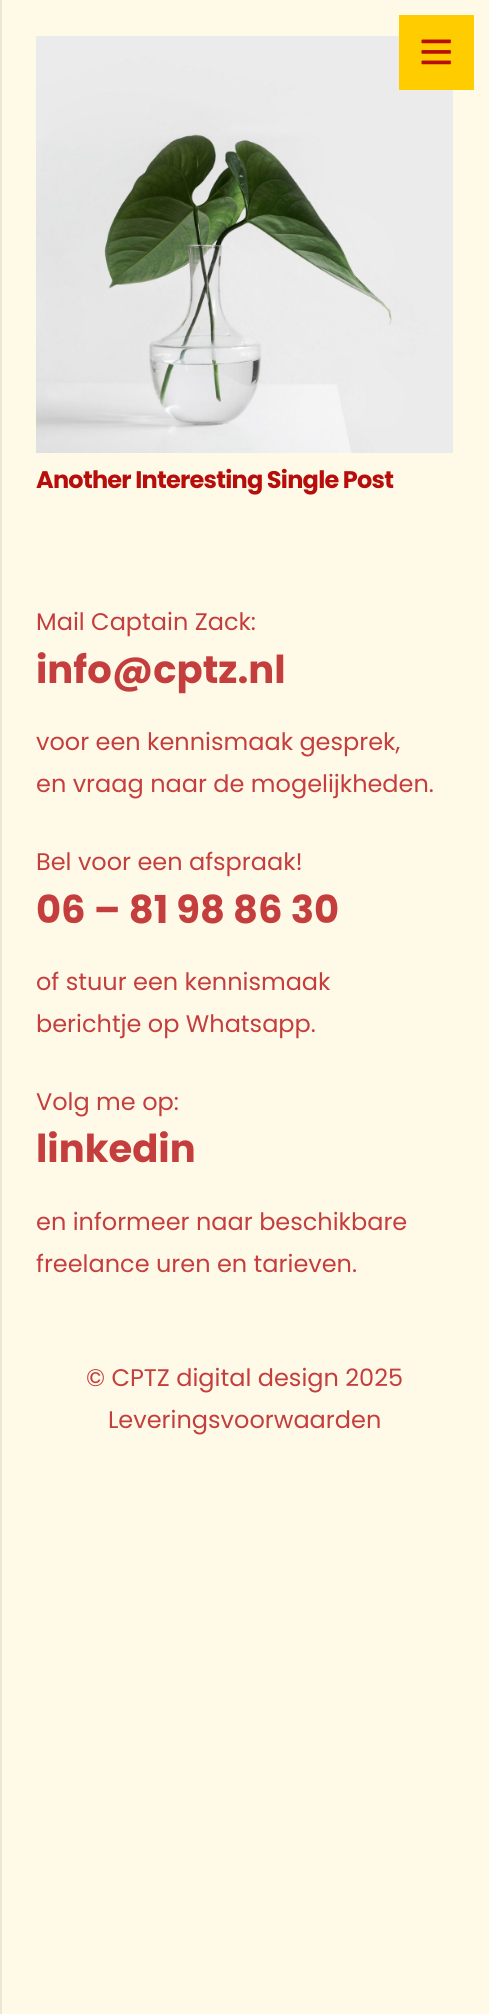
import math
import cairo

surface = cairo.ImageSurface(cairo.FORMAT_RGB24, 489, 2014)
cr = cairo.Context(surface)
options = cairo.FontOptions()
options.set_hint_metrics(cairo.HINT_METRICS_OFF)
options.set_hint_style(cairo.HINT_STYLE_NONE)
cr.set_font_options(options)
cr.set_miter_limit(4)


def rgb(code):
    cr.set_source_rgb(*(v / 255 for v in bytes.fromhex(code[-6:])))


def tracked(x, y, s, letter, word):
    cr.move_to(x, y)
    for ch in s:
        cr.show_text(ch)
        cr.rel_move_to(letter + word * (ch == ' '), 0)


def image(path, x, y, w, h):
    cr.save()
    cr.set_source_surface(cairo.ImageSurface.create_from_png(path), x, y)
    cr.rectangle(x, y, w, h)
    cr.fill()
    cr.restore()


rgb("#fffae7")
cr.paint()
image("img/2.png", 36, 36, 417, 417)
rgb("#ffcc00")
cr.rectangle(399, 15, 75, 75)
cr.fill()
image("img/1.png", 421, 39, 30, 26)
rgb("#ebe6d5")
cr.new_path()
cr.move_to(-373, 2014)
cr.line_to(-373, 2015)
cr.line_to(2, 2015)
cr.line_to(2, 0)
cr.line_to(0, 0)
cr.line_to(0, 2014)
cr.close_path()
cr.fill()
cr.select_font_face("Poppins", cairo.FONT_SLANT_NORMAL, cairo.FONT_WEIGHT_BOLD)
cr.set_font_size(24)
rgb("#b70e0c")
tracked(36, 488, "Another Interesting Single Post", -0.75, 0)
cr.select_font_face("Poppins")
rgb("#c53e3e")
cr.move_to(36, 630)
cr.show_text("Mail Captain Zack:")
cr.select_font_face("Poppins", cairo.FONT_SLANT_NORMAL, cairo.FONT_WEIGHT_BOLD)
cr.set_font_size(38.5)
cr.move_to(36, 683)
cr.show_text("info@cptz.nl")
cr.select_font_face("Poppins")
cr.set_font_size(24)
for x, y, s in [
    (36, 750, "voor een kennismaak gesprek,"),
    (36, 792, "en vraag naar de mogelijkheden."),
    (36, 870, "Bel voor een afspraak!"),
]:
    cr.move_to(x, y)
    cr.show_text(s)
cr.select_font_face("Poppins", cairo.FONT_SLANT_NORMAL, cairo.FONT_WEIGHT_BOLD)
cr.set_font_size(38.5)
cr.move_to(36, 923)
cr.show_text("06 – 81 98 86 30")
cr.select_font_face("Poppins")
cr.set_font_size(24)
for x, y, s in [
    (36, 990, "of stuur een kennismaak"),
    (36, 1032, "berichtje op Whatsapp."),
    (36, 1110, "Volg me op:"),
]:
    cr.move_to(x, y)
    cr.show_text(s)
cr.select_font_face("Poppins", cairo.FONT_SLANT_NORMAL, cairo.FONT_WEIGHT_BOLD)
cr.set_font_size(38.5)
cr.move_to(36, 1162)
cr.show_text("linkedin")
cr.select_font_face("Poppins")
cr.set_font_size(24)
for x, y, s in [
    (36, 1230, "en informeer naar beschikbare"),
    (36, 1272, "freelance uren en tarieven."),
    (86, 1386, "© CPTZ digital design 2025"),
    (108, 1428, "Leveringsvoorwaarden"),
]:
    cr.move_to(x, y)
    cr.show_text(s)
surface.write_to_png("page.png")
